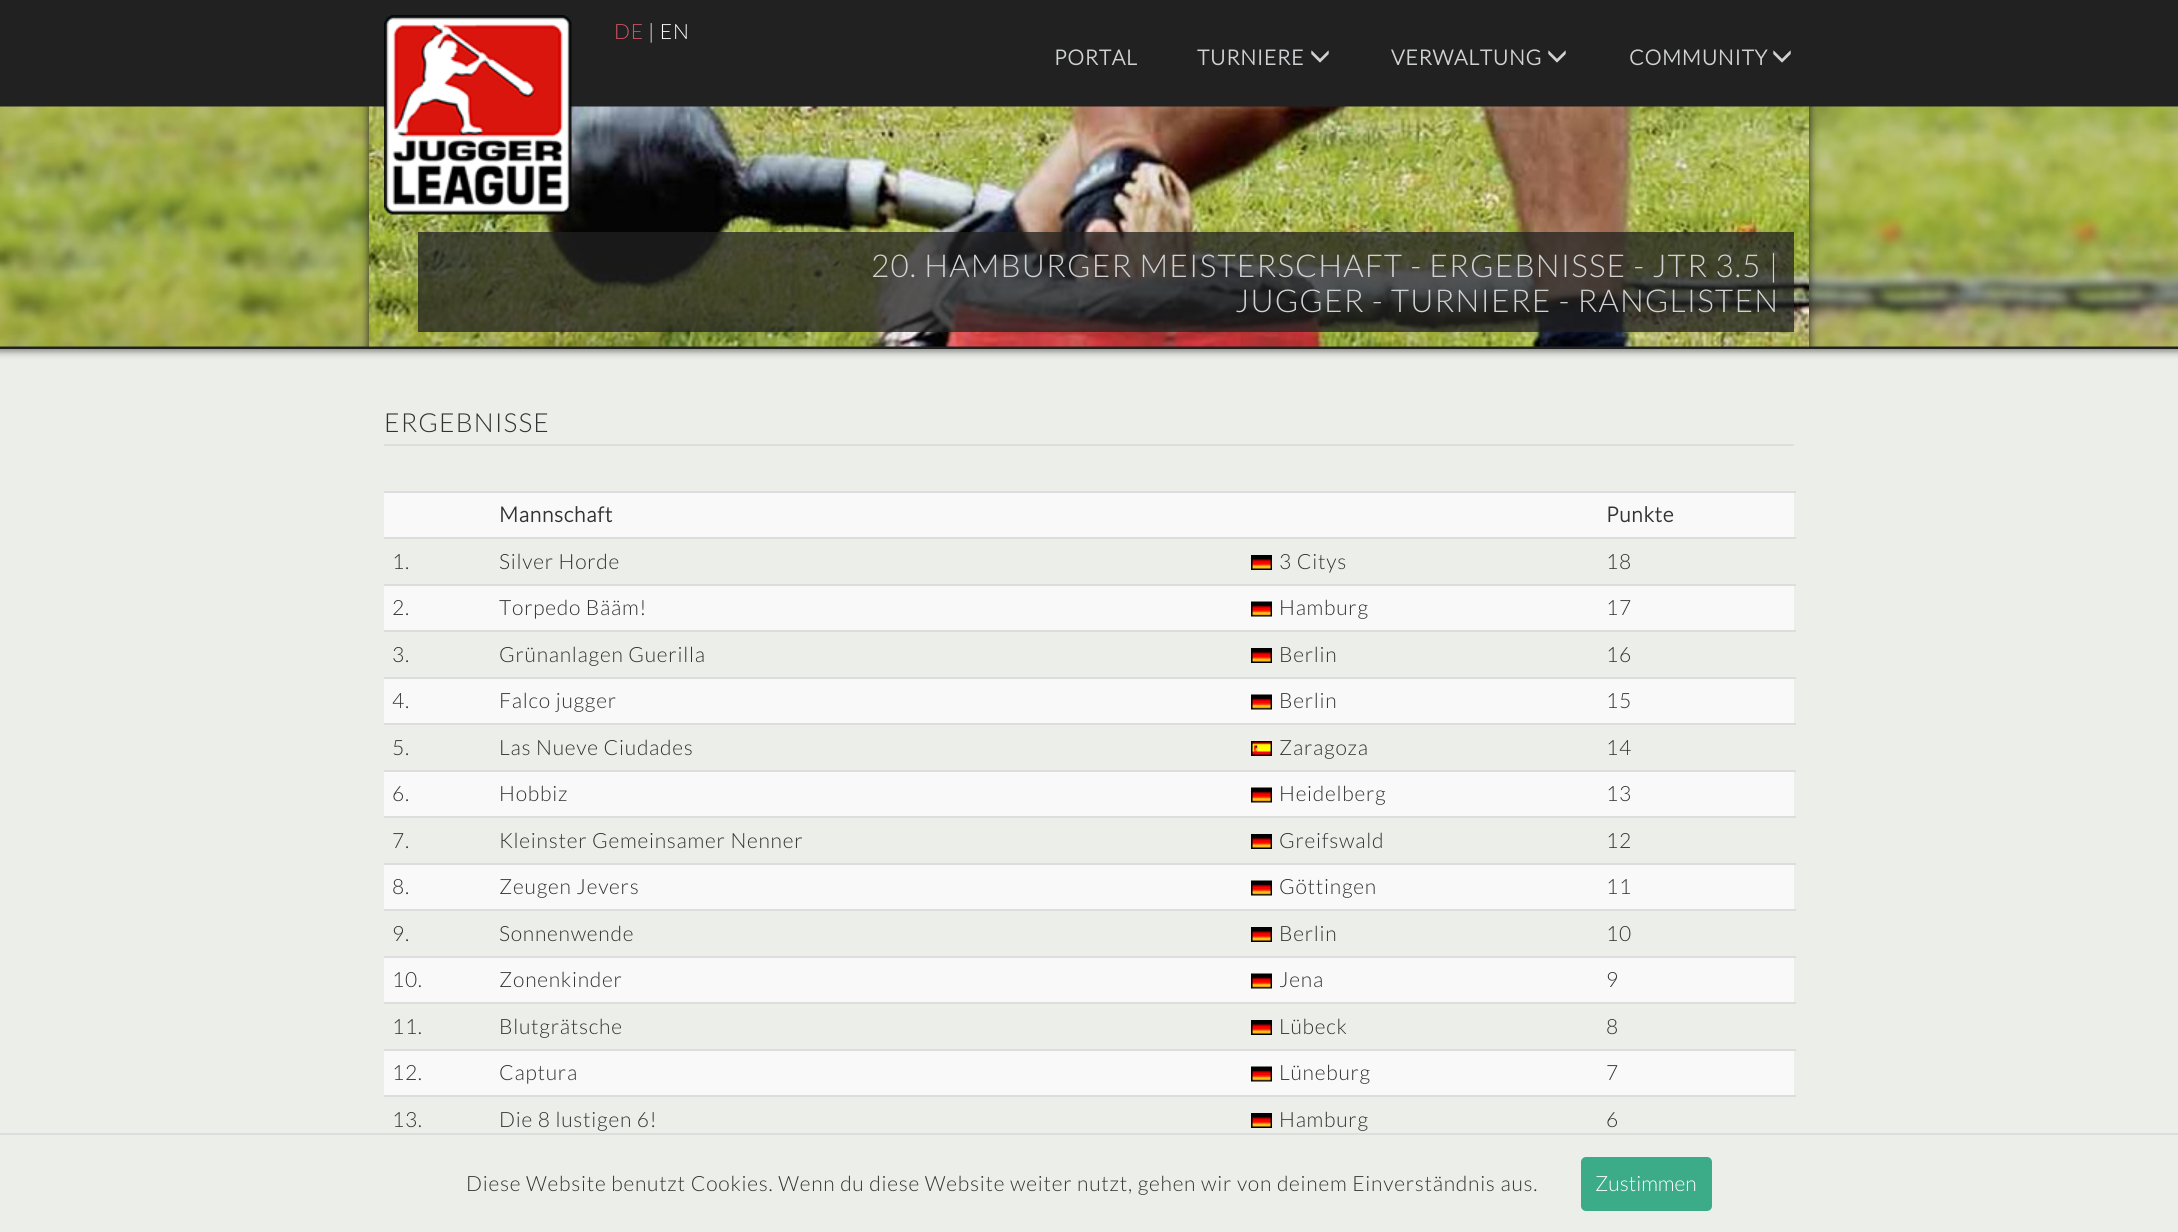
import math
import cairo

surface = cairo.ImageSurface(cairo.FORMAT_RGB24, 2178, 1232)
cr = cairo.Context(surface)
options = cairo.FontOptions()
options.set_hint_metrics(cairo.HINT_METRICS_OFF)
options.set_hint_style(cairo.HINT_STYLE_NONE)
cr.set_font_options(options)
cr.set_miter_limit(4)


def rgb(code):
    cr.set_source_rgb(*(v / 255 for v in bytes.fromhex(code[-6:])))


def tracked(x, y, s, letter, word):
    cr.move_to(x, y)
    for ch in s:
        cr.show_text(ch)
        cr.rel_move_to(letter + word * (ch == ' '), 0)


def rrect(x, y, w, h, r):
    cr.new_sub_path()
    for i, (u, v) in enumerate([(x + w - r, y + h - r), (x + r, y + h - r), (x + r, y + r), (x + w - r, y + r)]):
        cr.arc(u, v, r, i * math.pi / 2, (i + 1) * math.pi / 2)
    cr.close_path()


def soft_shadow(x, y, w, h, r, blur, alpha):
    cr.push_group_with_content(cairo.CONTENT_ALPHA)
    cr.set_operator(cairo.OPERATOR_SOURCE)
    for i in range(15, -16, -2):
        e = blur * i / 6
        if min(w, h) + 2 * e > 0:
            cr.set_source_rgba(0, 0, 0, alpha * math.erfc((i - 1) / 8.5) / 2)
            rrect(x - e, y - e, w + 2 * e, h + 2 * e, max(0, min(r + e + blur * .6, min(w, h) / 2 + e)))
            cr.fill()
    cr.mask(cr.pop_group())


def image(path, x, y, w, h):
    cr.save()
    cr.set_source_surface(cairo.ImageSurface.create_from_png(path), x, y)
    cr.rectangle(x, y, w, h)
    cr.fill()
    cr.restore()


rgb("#eceee9")
cr.paint()
rgb("#000000")
soft_shadow(-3, -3, 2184, 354, 0, 4, 0.5)
rgb("#212121")
cr.rectangle(0, 0, 2178, 349)
cr.fill()
image("img/1.png", 0, 106, 2178, 241)
image("img/4.png", 369, 106, 1440, 241)
image("img/2.png", 384, 15, 188, 200)
image("img/3.png", 1311, 50, 18, 13)
image("img/3.png", 1548, 50, 18, 13)
image("img/3.png", 1773, 50, 18, 13)
cr.set_source_rgba(0.129, 0.129, 0.129, 0.75)
cr.rectangle(418, 232, 1376, 100)
cr.fill()
rgb("#dddddd")
cr.rectangle(384, 444, 1410, 2)
cr.fill()
rgb("#f9f9f9")
cr.rectangle(384, 493, 1410, 44)
cr.fill()
rgb("#dddddd")
cr.rectangle(384, 491, 1412, 2)
cr.fill()
image("img/5.png", 1251, 555, 21, 15)
cr.rectangle(384, 537, 1412, 2)
cr.fill()
rgb("#f9f9f9")
cr.rectangle(384, 586, 1410, 44)
cr.fill()
image("img/6.png", 1251, 601, 21, 16)
rgb("#dddddd")
cr.rectangle(384, 584, 1412, 2)
cr.fill()
image("img/5.png", 1251, 648, 21, 15)
cr.rectangle(384, 630, 1412, 2)
cr.fill()
rgb("#f9f9f9")
cr.rectangle(384, 679, 1410, 44)
cr.fill()
image("img/6.png", 1251, 694, 21, 16)
rgb("#dddddd")
cr.rectangle(384, 677, 1412, 2)
cr.fill()
image("img/7.png", 1251, 741, 21, 15)
cr.rectangle(384, 723, 1412, 2)
cr.fill()
rgb("#f9f9f9")
cr.rectangle(384, 772, 1410, 44)
cr.fill()
image("img/6.png", 1251, 787, 21, 16)
rgb("#dddddd")
cr.rectangle(384, 770, 1412, 2)
cr.fill()
image("img/5.png", 1251, 834, 21, 15)
cr.rectangle(384, 816, 1412, 2)
cr.fill()
rgb("#f9f9f9")
cr.rectangle(384, 865, 1410, 44)
cr.fill()
image("img/6.png", 1251, 880, 21, 16)
rgb("#dddddd")
cr.rectangle(384, 863, 1412, 2)
cr.fill()
image("img/5.png", 1251, 927, 21, 15)
cr.rectangle(384, 909, 1412, 2)
cr.fill()
rgb("#f9f9f9")
cr.rectangle(384, 958, 1410, 44)
cr.fill()
image("img/6.png", 1251, 973, 21, 16)
rgb("#dddddd")
cr.rectangle(384, 956, 1412, 2)
cr.fill()
image("img/5.png", 1251, 1020, 21, 15)
cr.rectangle(384, 1002, 1412, 2)
cr.fill()
rgb("#f9f9f9")
cr.rectangle(384, 1051, 1410, 44)
cr.fill()
image("img/6.png", 1251, 1066, 21, 16)
rgb("#dddddd")
cr.rectangle(384, 1049, 1412, 2)
cr.fill()
image("img/5.png", 1251, 1113, 21, 15)
cr.rectangle(384, 1095, 1412, 2)
cr.fill()
cr.rectangle(0, 1133, 2178, 2)
cr.fill()
rgb("#3cab88")
rrect(1581, 1157, 131, 54, 5)
cr.fill()
cr.select_font_face("Lato Light")
cr.set_font_size(21)
rgb("#cd5465")
tracked(614, 39, "DE", 0.75, 0)
rgb("#ffffff")
tracked(648, 39, "| EN", 0.75, 0)
cr.select_font_face("Lato", cairo.FONT_SLANT_NORMAL, cairo.FONT_WEIGHT_BOLD)
rgb("#d0d1d2")
for x, y, s in [
    (1054, 65, "PORTAL"),
    (1197, 65, "TURNIERE"),
    (1391, 65, "VERWALTUNG"),
    (1629, 65, "COMMUNITY"),
]:
    tracked(x, y, s, 0.75, 0)
cr.select_font_face("Lato Light")
cr.set_font_size(31.5)
tracked(871, 277, "20. HAMBURGER MEISTERSCHAFT - ERGEBNISSE - JTR 3.5 |", 1.12, 0)
tracked(1235, 312, "JUGGER - TURNIERE - RANGLISTEN", 1.12, 0)
cr.set_font_size(26.25)
rgb("#333333")
tracked(384, 432, "ERGEBNISSE", 1.12, 0)
cr.select_font_face("Lato", cairo.FONT_SLANT_NORMAL, cairo.FONT_WEIGHT_BOLD)
cr.set_font_size(21)
tracked(499, 522, "Mannschaft", 0.75, 0)
tracked(1606, 522, "Punkte", 0.75, 0)
cr.select_font_face("Lato Light")
for x, y, s in [
    (392, 569, "1."),
    (499, 569, "Silver Horde"),
    (1279, 569, "3 Citys"),
    (1606, 569, "18"),
    (392, 615, "2."),
    (499, 615, "Torpedo Bääm!"),
    (1279, 615, "Hamburg"),
    (1606, 615, "17"),
    (392, 662, "3."),
    (499, 662, "Grünanlagen Guerilla"),
    (1279, 662, "Berlin"),
    (1606, 662, "16"),
    (392, 708, "4."),
    (499, 708, "Falco jugger"),
    (1279, 708, "Berlin"),
    (1606, 708, "15"),
    (392, 755, "5."),
    (499, 755, "Las Nueve Ciudades"),
    (1279, 755, "Zaragoza"),
    (1606, 755, "14"),
    (392, 801, "6."),
    (499, 801, "Hobbiz"),
    (1279, 801, "Heidelberg"),
    (1606, 801, "13"),
    (392, 848, "7."),
    (499, 848, "Kleinster Gemeinsamer Nenner"),
    (1279, 848, "Greifswald"),
    (1606, 848, "12"),
    (392, 894, "8."),
    (499, 894, "Zeugen Jevers"),
    (1279, 894, "Göttingen"),
    (1606, 894, "11"),
    (392, 941, "9."),
    (499, 941, "Sonnenwende"),
    (1279, 941, "Berlin"),
    (1606, 941, "10"),
    (392, 987, "10."),
    (499, 987, "Zonenkinder"),
    (1279, 987, "Jena"),
    (1606, 987, "9"),
    (392, 1034, "11."),
    (499, 1034, "Blutgrätsche"),
    (1279, 1034, "Lübeck"),
    (1606, 1034, "8"),
    (392, 1080, "12."),
    (499, 1080, "Captura"),
    (1279, 1080, "Lüneburg"),
    (1606, 1080, "7"),
    (392, 1127, "13."),
    (499, 1127, "Die 8 lustigen 6!"),
    (1279, 1127, "Hamburg"),
    (1606, 1127, "6"),
    (466, 1191, "Diese Website benutzt Cookies. Wenn du diese Website weiter nutzt, gehen wir von deinem Einverständnis aus."),
]:
    tracked(x, y, s, 0.75, 0)
rgb("#ffffff")
cr.move_to(1595, 1191)
cr.show_text("Zustimmen")
surface.write_to_png("page.png")
